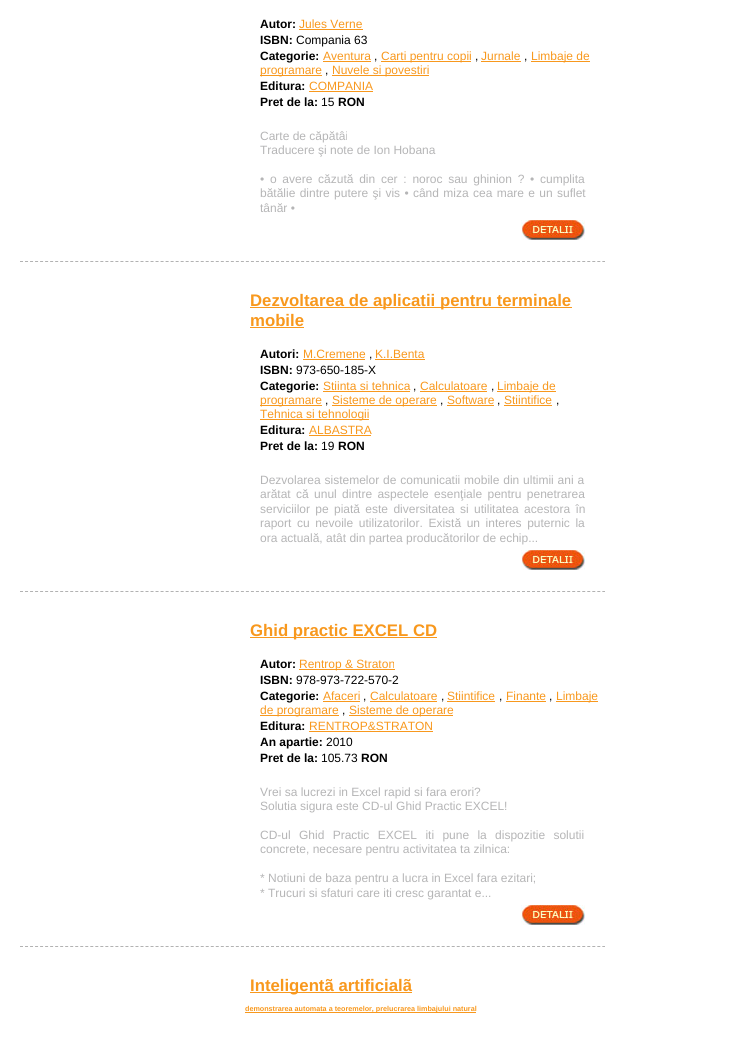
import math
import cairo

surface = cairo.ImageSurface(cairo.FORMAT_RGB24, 756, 1038)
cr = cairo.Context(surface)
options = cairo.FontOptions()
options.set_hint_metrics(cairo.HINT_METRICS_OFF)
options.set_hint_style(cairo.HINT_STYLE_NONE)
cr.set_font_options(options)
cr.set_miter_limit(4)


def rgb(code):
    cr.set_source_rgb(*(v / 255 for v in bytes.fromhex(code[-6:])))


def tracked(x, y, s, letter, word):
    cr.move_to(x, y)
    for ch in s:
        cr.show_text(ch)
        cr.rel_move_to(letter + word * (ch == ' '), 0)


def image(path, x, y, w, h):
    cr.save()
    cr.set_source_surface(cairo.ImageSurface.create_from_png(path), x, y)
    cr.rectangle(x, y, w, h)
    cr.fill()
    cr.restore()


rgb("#ffffff")
cr.paint()
cr.new_path()
cr.move_to(20, 261.5)
cr.line_to(605, 261.5)
rgb("#b2b2b2")
cr.set_line_width(1)
cr.set_dash([3, 2.02])
cr.stroke()
for x, y, w, h, color in [
    (299, 29, 64, 1, "#f8981d"),
    (323, 61, 48, 1, "#f8981d"),
    (381, 61, 90, 1, "#f8981d"),
    (481, 61, 40, 1, "#f8981d"),
    (531, 61, 59, 1, "#f8981d"),
    (260, 75, 62, 1, "#f8981d"),
    (332, 75, 97, 1, "#f8981d"),
    (309, 91, 64, 1, "#f8981d"),
]:
    rgb(color)
    cr.rectangle(x, y, w, h)
    cr.fill()
image("img/1.png", 521, 220, 64, 20)
cr.new_path()
cr.move_to(20, 591.5)
cr.line_to(605, 591.5)
rgb("#b2b2b2")
cr.stroke()
for x, y, w, h, color in [
    (250, 307, 322, 1, "#f8981d"),
    (250, 327, 54, 1, "#f8981d"),
    (303, 359, 62, 1, "#f8981d"),
    (375, 359, 50, 1, "#f8981d"),
    (323, 391, 87, 1, "#f8981d"),
    (420, 391, 67, 1, "#f8981d"),
    (497, 391, 59, 1, "#f8981d"),
    (260, 405, 62, 1, "#f8981d"),
    (332, 405, 105, 1, "#f8981d"),
    (447, 405, 47, 1, "#f8981d"),
    (504, 405, 48, 1, "#f8981d"),
    (260, 419, 109, 1, "#f8981d"),
    (309, 435, 62, 1, "#f8981d"),
]:
    rgb(color)
    cr.rectangle(x, y, w, h)
    cr.fill()
image("img/1.png", 521, 550, 64, 20)
cr.new_path()
cr.move_to(20, 946.5)
cr.line_to(605, 946.5)
rgb("#b2b2b2")
cr.stroke()
for x, y, w, h, color in [
    (250, 637, 187, 1, "#f8981d"),
    (299, 669, 96, 1, "#f8981d"),
    (323, 701, 37, 1, "#f8981d"),
    (370, 701, 67, 1, "#f8981d"),
    (447, 701, 48, 1, "#f8981d"),
    (506, 701, 40, 1, "#f8981d"),
    (556, 701, 42, 1, "#f8981d"),
    (260, 715, 79, 1, "#f8981d"),
    (349, 715, 104, 1, "#f8981d"),
    (309, 731, 124, 1, "#f8981d"),
]:
    rgb(color)
    cr.rectangle(x, y, w, h)
    cr.fill()
image("img/1.png", 521, 905, 64, 20)
cr.rectangle(250, 992, 162, 1)
cr.fill()
cr.rectangle(245, 1012, 231, 1)
cr.fill()
cr.select_font_face("Liberation Sans", cairo.FONT_SLANT_NORMAL, cairo.FONT_WEIGHT_BOLD)
cr.set_font_size(12)
rgb("#000000")
cr.move_to(260, 28)
cr.show_text("Autor:")
cr.select_font_face("Liberation Sans")
rgb("#f8981d")
cr.move_to(299, 28)
cr.show_text("Jules Verne")
cr.select_font_face("Liberation Sans", cairo.FONT_SLANT_NORMAL, cairo.FONT_WEIGHT_BOLD)
rgb("#000000")
cr.move_to(260, 44)
cr.show_text("ISBN:")
cr.select_font_face("Liberation Sans")
cr.move_to(296, 44)
cr.show_text("Compania 63")
cr.select_font_face("Liberation Sans", cairo.FONT_SLANT_NORMAL, cairo.FONT_WEIGHT_BOLD)
cr.move_to(260, 60)
cr.show_text("Categorie:")
cr.select_font_face("Liberation Sans")
rgb("#f8981d")
cr.move_to(323, 60)
cr.show_text("Aventura")
rgb("#000000")
cr.move_to(374, 60)
cr.show_text(",")
rgb("#f8981d")
cr.move_to(381, 60)
cr.show_text("Carti pentru copii")
rgb("#000000")
cr.move_to(475, 60)
cr.show_text(",")
rgb("#f8981d")
cr.move_to(481, 60)
cr.show_text("Jurnale")
rgb("#000000")
cr.move_to(524, 60)
cr.show_text(",")
rgb("#f8981d")
cr.move_to(531, 60)
cr.show_text("Limbaje de")
cr.move_to(260, 74)
cr.show_text("programare")
rgb("#000000")
cr.move_to(325, 74)
cr.show_text(",")
rgb("#f8981d")
cr.move_to(332, 74)
cr.show_text("Nuvele si povestiri")
cr.select_font_face("Liberation Sans", cairo.FONT_SLANT_NORMAL, cairo.FONT_WEIGHT_BOLD)
rgb("#000000")
cr.move_to(260, 90)
cr.show_text("Editura:")
cr.select_font_face("Liberation Sans")
rgb("#f8981d")
cr.move_to(309, 90)
cr.show_text("COMPANIA")
cr.select_font_face("Liberation Sans", cairo.FONT_SLANT_NORMAL, cairo.FONT_WEIGHT_BOLD)
rgb("#000000")
cr.move_to(260, 106)
cr.show_text("Pret de la:")
cr.select_font_face("Liberation Sans")
cr.move_to(321, 106)
cr.show_text("15")
cr.select_font_face("Liberation Sans", cairo.FONT_SLANT_NORMAL, cairo.FONT_WEIGHT_BOLD)
cr.move_to(338, 106)
cr.show_text("RON")
cr.select_font_face("Liberation Sans")
rgb("#b5b5b6")
cr.move_to(260, 140)
cr.show_text("Carte de căpătâi")
cr.move_to(260, 154)
cr.show_text("Traducere şi note de Ion Hobana")
tracked(260, 183, "• o avere căzută din cer : noroc sau ghinion ? • cumplita", 0, 2.4)
tracked(260, 197, "bătălie dintre putere şi vis • când miza cea mare e un suflet", 0, 1)
cr.move_to(260, 212)
cr.show_text("tânăr •")
cr.select_font_face("Liberation Sans", cairo.FONT_SLANT_NORMAL, cairo.FONT_WEIGHT_BOLD)
cr.set_font_size(16.75)
rgb("#f8981d")
cr.move_to(250, 306)
cr.show_text("Dezvoltarea de aplicatii pentru terminale")
cr.move_to(250, 326)
cr.show_text("mobile")
cr.set_font_size(12)
rgb("#000000")
cr.move_to(260, 358)
cr.show_text("Autori:")
cr.select_font_face("Liberation Sans")
rgb("#f8981d")
cr.move_to(303, 358)
cr.show_text("M.Cremene")
rgb("#000000")
cr.move_to(369, 358)
cr.show_text(",")
rgb("#f8981d")
cr.move_to(375, 358)
cr.show_text("K.I.Benta")
cr.select_font_face("Liberation Sans", cairo.FONT_SLANT_NORMAL, cairo.FONT_WEIGHT_BOLD)
rgb("#000000")
cr.move_to(260, 374)
cr.show_text("ISBN:")
cr.select_font_face("Liberation Sans")
cr.move_to(296, 374)
cr.show_text("973-650-185-X")
cr.select_font_face("Liberation Sans", cairo.FONT_SLANT_NORMAL, cairo.FONT_WEIGHT_BOLD)
cr.move_to(260, 390)
cr.show_text("Categorie:")
cr.select_font_face("Liberation Sans")
rgb("#f8981d")
cr.move_to(323, 390)
cr.show_text("Stiinta si tehnica")
rgb("#000000")
cr.move_to(413, 390)
cr.show_text(",")
rgb("#f8981d")
cr.move_to(420, 390)
cr.show_text("Calculatoare")
rgb("#000000")
cr.move_to(491, 390)
cr.show_text(",")
rgb("#f8981d")
cr.move_to(497, 390)
cr.show_text("Limbaje de")
cr.move_to(260, 404)
cr.show_text("programare")
rgb("#000000")
cr.move_to(325, 404)
cr.show_text(",")
rgb("#f8981d")
cr.move_to(332, 404)
cr.show_text("Sisteme de operare")
rgb("#000000")
cr.move_to(440, 404)
cr.show_text(",")
rgb("#f8981d")
cr.move_to(447, 404)
cr.show_text("Software")
rgb("#000000")
cr.move_to(497, 404)
cr.show_text(",")
rgb("#f8981d")
cr.move_to(504, 404)
cr.show_text("Stiintifice")
rgb("#000000")
cr.move_to(556, 404)
cr.show_text(",")
rgb("#f8981d")
cr.move_to(260, 418)
cr.show_text("Tehnica si tehnologii")
cr.select_font_face("Liberation Sans", cairo.FONT_SLANT_NORMAL, cairo.FONT_WEIGHT_BOLD)
rgb("#000000")
cr.move_to(260, 434)
cr.show_text("Editura:")
cr.select_font_face("Liberation Sans")
rgb("#f8981d")
cr.move_to(309, 434)
cr.show_text("ALBASTRA")
cr.select_font_face("Liberation Sans", cairo.FONT_SLANT_NORMAL, cairo.FONT_WEIGHT_BOLD)
rgb("#000000")
cr.move_to(260, 450)
cr.show_text("Pret de la:")
cr.select_font_face("Liberation Sans")
cr.move_to(321, 450)
cr.show_text("19")
cr.select_font_face("Liberation Sans", cairo.FONT_SLANT_NORMAL, cairo.FONT_WEIGHT_BOLD)
cr.move_to(338, 450)
cr.show_text("RON")
cr.select_font_face("Liberation Sans")
rgb("#b5b5b6")
tracked(260, 484, "Dezvolarea sistemelor de comunicatii mobile din ultimii ani a", 0, 0.5)
tracked(260, 498, "arătat că unul dintre aspectele esenţiale pentru penetrarea", 0, 2)
tracked(260, 513, "serviciilor pe piată este diversitatea si utilitatea acestora în", 0, 2)
tracked(260, 527, "raport cu nevoile utilizatorilor. Există un interes puternic la", 0, 2.25)
cr.move_to(260, 542)
cr.show_text("ora actuală, atât din partea producătorilor de echip...")
cr.select_font_face("Liberation Sans", cairo.FONT_SLANT_NORMAL, cairo.FONT_WEIGHT_BOLD)
cr.set_font_size(16.75)
rgb("#f8981d")
cr.move_to(250, 636)
cr.show_text("Ghid practic EXCEL CD")
cr.set_font_size(12)
rgb("#000000")
cr.move_to(260, 668)
cr.show_text("Autor:")
cr.select_font_face("Liberation Sans")
rgb("#f8981d")
cr.move_to(299, 668)
cr.show_text("Rentrop & Straton")
cr.select_font_face("Liberation Sans", cairo.FONT_SLANT_NORMAL, cairo.FONT_WEIGHT_BOLD)
rgb("#000000")
cr.move_to(260, 684)
cr.show_text("ISBN:")
cr.select_font_face("Liberation Sans")
cr.move_to(296, 684)
cr.show_text("978-973-722-570-2")
cr.select_font_face("Liberation Sans", cairo.FONT_SLANT_NORMAL, cairo.FONT_WEIGHT_BOLD)
cr.move_to(260, 700)
cr.show_text("Categorie:")
cr.select_font_face("Liberation Sans")
rgb("#f8981d")
cr.move_to(323, 700)
cr.show_text("Afaceri")
rgb("#000000")
cr.move_to(363, 700)
cr.show_text(",")
rgb("#f8981d")
cr.move_to(370, 700)
cr.show_text("Calculatoare")
rgb("#000000")
cr.move_to(441, 700)
cr.show_text(",")
rgb("#f8981d")
cr.move_to(447, 700)
cr.show_text("Stiintifice")
rgb("#000000")
cr.move_to(499, 700)
cr.show_text(",")
rgb("#f8981d")
cr.move_to(506, 700)
cr.show_text("Finante")
rgb("#000000")
cr.move_to(549, 700)
cr.show_text(",")
rgb("#f8981d")
cr.move_to(556, 700)
cr.show_text("Limbaje")
cr.move_to(260, 714)
cr.show_text("de programare")
rgb("#000000")
cr.move_to(342, 714)
cr.show_text(",")
rgb("#f8981d")
cr.move_to(349, 714)
cr.show_text("Sisteme de operare")
cr.select_font_face("Liberation Sans", cairo.FONT_SLANT_NORMAL, cairo.FONT_WEIGHT_BOLD)
rgb("#000000")
cr.move_to(260, 730)
cr.show_text("Editura:")
cr.select_font_face("Liberation Sans")
rgb("#f8981d")
cr.move_to(309, 730)
cr.show_text("RENTROP&STRATON")
cr.select_font_face("Liberation Sans", cairo.FONT_SLANT_NORMAL, cairo.FONT_WEIGHT_BOLD)
rgb("#000000")
cr.move_to(260, 746)
cr.show_text("An apartie:")
cr.select_font_face("Liberation Sans")
cr.move_to(326, 746)
cr.show_text("2010")
cr.select_font_face("Liberation Sans", cairo.FONT_SLANT_NORMAL, cairo.FONT_WEIGHT_BOLD)
cr.move_to(260, 762)
cr.show_text("Pret de la:")
cr.select_font_face("Liberation Sans")
cr.move_to(321, 762)
cr.show_text("105.73")
cr.select_font_face("Liberation Sans", cairo.FONT_SLANT_NORMAL, cairo.FONT_WEIGHT_BOLD)
cr.move_to(361, 762)
cr.show_text("RON")
cr.select_font_face("Liberation Sans")
rgb("#b5b5b6")
cr.move_to(260, 796)
cr.show_text("Vrei sa lucrezi in Excel rapid si fara erori?")
cr.move_to(260, 810)
cr.show_text("Solutia sigura este CD-ul Ghid Practic EXCEL!")
tracked(260, 839, "CD-ul Ghid Practic EXCEL iti pune la dispozitie solutii", 0, 5)
for x, y, s in [
    (260, 853, "concrete, necesare pentru activitatea ta zilnica:"),
    (260, 882, "* Notiuni de baza pentru a lucra in Excel fara ezitari;"),
    (260, 897, "* Trucuri si sfaturi care iti cresc garantat e..."),
]:
    cr.move_to(x, y)
    cr.show_text(s)
cr.select_font_face("Liberation Sans", cairo.FONT_SLANT_NORMAL, cairo.FONT_WEIGHT_BOLD)
cr.set_font_size(16.75)
rgb("#f8981d")
cr.move_to(250, 991)
cr.show_text("Inteligentã artificialã")
cr.set_font_size(7.2)
cr.move_to(245, 1011)
cr.show_text("demonstrarea automata a teoremelor, prelucrarea limbajului natural")
surface.write_to_png("page.png")
